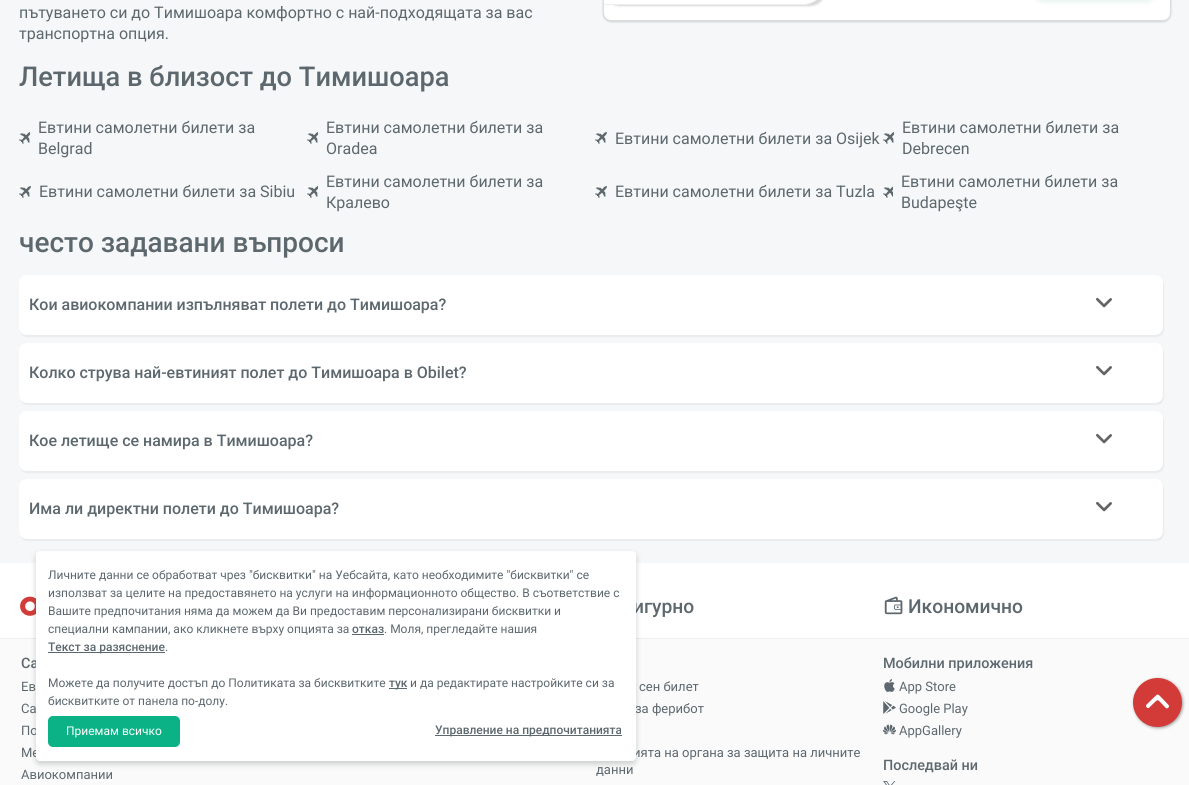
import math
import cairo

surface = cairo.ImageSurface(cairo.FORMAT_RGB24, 1189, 785)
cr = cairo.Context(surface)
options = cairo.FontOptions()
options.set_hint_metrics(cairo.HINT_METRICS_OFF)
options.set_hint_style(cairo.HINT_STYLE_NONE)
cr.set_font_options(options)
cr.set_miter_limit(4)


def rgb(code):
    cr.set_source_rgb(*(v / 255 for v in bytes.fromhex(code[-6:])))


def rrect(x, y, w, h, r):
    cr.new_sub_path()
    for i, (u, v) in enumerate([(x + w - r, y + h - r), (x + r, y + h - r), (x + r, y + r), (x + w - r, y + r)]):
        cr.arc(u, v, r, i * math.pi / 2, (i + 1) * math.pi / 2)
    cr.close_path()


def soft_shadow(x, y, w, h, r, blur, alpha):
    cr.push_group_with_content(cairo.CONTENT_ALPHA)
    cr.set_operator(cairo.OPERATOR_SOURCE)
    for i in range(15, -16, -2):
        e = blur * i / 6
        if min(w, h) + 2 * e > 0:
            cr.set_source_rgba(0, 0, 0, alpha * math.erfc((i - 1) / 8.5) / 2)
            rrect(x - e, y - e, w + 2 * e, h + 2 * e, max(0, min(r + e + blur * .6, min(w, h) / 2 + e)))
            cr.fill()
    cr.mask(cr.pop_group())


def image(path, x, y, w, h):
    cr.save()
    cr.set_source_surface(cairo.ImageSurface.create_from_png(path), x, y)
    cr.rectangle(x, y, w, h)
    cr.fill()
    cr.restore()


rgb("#ffffff")
cr.paint()
rgb("#f6f7f8")
cr.rectangle(0, 0, 1189, 563)
cr.fill()
rgb("#000000")
soft_shadow(603, -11, 568, 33, 8, 1, 0.16)
rgb("#ffffff")
rrect(603.5, -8.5, 567, 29, 7.5)
cr.fill_preserve()
rgb("#dddddd")
cr.set_line_width(1)
cr.stroke()
cr.save()
cr.set_fill_rule(cairo.FILL_RULE_EVEN_ODD)
cr.new_path()
cr.move_to(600, 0)
cr.line_to(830, 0)
cr.line_to(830, 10)
cr.line_to(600, 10)
cr.close_path()
cr.move_to(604, -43)
cr.line_to(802, -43)
cr.curve_to(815.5, -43, 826, -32.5, 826, -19)
cr.curve_to(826, -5.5, 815.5, 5, 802, 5)
cr.line_to(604, 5)
cr.close_path()
cr.clip()
rgb("#000000")
soft_shadow(604, -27, 222, 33, 24, 1, 0.16)
cr.restore()
cr.set_source_rgba(0.71, 0.733, 0.745, 0.25)
cr.set_fill_rule(cairo.FILL_RULE_EVEN_ODD)
cr.new_path()
cr.move_to(604, -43)
cr.line_to(802, -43)
cr.curve_to(815, -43, 826, -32, 826, -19)
cr.curve_to(826, -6, 815, 5, 802, 5)
cr.line_to(604, 5)
cr.close_path()
cr.move_to(604, -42)
cr.line_to(802, -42)
cr.curve_to(815, -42, 825, -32, 825, -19)
cr.curve_to(825, -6, 815, 4, 802, 4)
cr.line_to(604, 4)
cr.close_path()
cr.fill()
rgb("#1f9b78")
soft_shadow(1035, -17, 120, 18, 8, 3, 0.16)
image("img/1.png", 19, 132, 11, 12)
image("img/1.png", 307, 132, 11, 12)
image("img/2.png", 595, 132, 12, 12)
image("img/1.png", 883, 132, 11, 12)
image("img/2.png", 19, 186, 12, 12)
image("img/1.png", 307, 186, 11, 12)
image("img/2.png", 595, 186, 12, 12)
image("img/3.png", 883, 186, 10, 12)
rgb("#000000")
soft_shadow(20, 277, 1144, 60, 8, 0.5, 0.05)
rgb("#ffffff")
rrect(19, 275, 1144, 60, 8)
cr.fill()
image("img/4.png", 1096, 297, 16, 11)
rgb("#000000")
soft_shadow(20, 345, 1144, 60, 8, 0.5, 0.05)
rgb("#ffffff")
rrect(19, 343, 1144, 60, 8)
cr.fill()
image("img/4.png", 1096, 365, 16, 11)
rgb("#000000")
soft_shadow(20, 413, 1144, 60, 8, 0.5, 0.05)
rgb("#ffffff")
rrect(19, 411, 1144, 60, 8)
cr.fill()
image("img/4.png", 1096, 433, 16, 11)
rgb("#000000")
soft_shadow(20, 481, 1144, 60, 8, 0.5, 0.05)
rgb("#ffffff")
rrect(19, 479, 1144, 60, 8)
cr.fill()
image("img/4.png", 1096, 501, 16, 11)
rgb("#fafafa")
cr.rectangle(0, 639, 1189, 146)
cr.fill()
rgb("#9d9d9c")
soft_shadow(1134, 679, 49, 49, 24.5, 1.5, 1)
rgb("#d23b38")
cr.arc(1157.5, 702.5, 24.5, 0, 2 * math.pi)
cr.fill()
image("img/5.png", 1146, 694, 23, 15)
rgb("#ededed")
cr.rectangle(0, 638, 1189, 1)
cr.fill()
image("img/6.png", 20, 596, 16, 20)
rgb("#3c4448")
soft_shadow(36, 554, 600, 210, 4, 3, 0.25)
image("img/7.png", 884, 596, 19, 19)
image("img/8.png", 884, 679, 11, 13)
image("img/9.png", 883, 701, 13, 13)
image("img/10.png", 883, 724, 13, 11)
image("img/11.png", 883, 781, 13, 4)
cr.select_font_face("Roboto")
cr.set_font_size(16)
rgb("#5d686e")
cr.move_to(19, 18)
cr.show_text("пътуването си до Тимишоара комфортно с най-подходящата за вас")
cr.move_to(19, 39)
cr.show_text("транспортна опция.")
cr.select_font_face("Roboto Medium")
cr.set_font_size(27.25)
cr.move_to(19, 86)
cr.show_text("Летища в близост до Тимишоара")
cr.select_font_face("Roboto")
cr.set_font_size(16)
for x, y, s in [
    (38, 133, "Евтини самолетни билети за"),
    (38, 154, "Belgrad"),
    (326, 133, "Евтини самолетни билети за"),
    (326, 154, "Oradea"),
    (615, 144, "Евтини самолетни билети за Osijek"),
    (902, 133, "Евтини самолетни билети за"),
    (902, 154, "Debrecen"),
    (39, 197, "Евтини самолетни билети за Sibiu"),
    (326, 187, "Евтини самолетни билети за"),
    (326, 208, "Кралево"),
    (615, 197, "Евтини самолетни билети за Tuzla"),
    (901, 187, "Евтини самолетни билети за"),
    (901, 208, "Budapeşte"),
]:
    cr.move_to(x, y)
    cr.show_text(s)
cr.select_font_face("Roboto Medium")
cr.set_font_size(28)
cr.move_to(19, 252)
cr.show_text("често задавани въпроси")
cr.set_font_size(16)
for x, y, s in [
    (29, 310, "Кои авиокомпании изпълняват полети до Тимишоара?"),
    (29, 378, "Колко струва най-евтиният полет до Тимишоара в Obilet?"),
    (29, 446, "Кое летище се намира в Тимишоара?"),
    (29, 514, "Има ли директни полети до Тимишоара?"),
]:
    cr.move_to(x, y)
    cr.show_text(s)
cr.set_font_size(19.25)
cr.move_to(633, 613)
cr.show_text("игурно")
cr.move_to(908, 613)
cr.show_text("Икономично")
cr.set_font_size(14.4)
cr.move_to(21, 668)
cr.show_text("Са")
cr.select_font_face("Roboto")
cr.set_font_size(13)
for x, y, s in [
    (21, 691, "Ев"),
    (21, 713, "Са"),
    (21, 735, "По"),
    (21, 757, "Ме"),
    (21, 779, "Авиокомпании"),
    (639, 691, "сен билет"),
    (635, 713, "за ферибот"),
    (633, 757, "ията на органа за защита на личните"),
]:
    cr.move_to(x, y)
    cr.show_text(s)
rgb("#ffffff")
rrect(36, 551, 600, 210, 4)
cr.fill()
rgb("#0ab285")
rrect(48, 716, 132, 31, 5)
cr.fill()
cr.set_font_size(12)
rgb("#ffffff")
cr.move_to(66, 735)
cr.show_text("Приемам всичко")
rgb("#5d686e")
cr.rectangle(435, 735, 187, 1)
cr.fill()
cr.select_font_face("Roboto Medium")
cr.move_to(435, 734)
cr.show_text("Управление на предпочитанията")
cr.select_font_face("Roboto")
cr.move_to(48, 705)
cr.show_text("бисквитките от панела по-долу.")
cr.move_to(410, 687)
cr.show_text("и да редактирате настройките си за")
cr.rectangle(389, 688, 18, 1)
cr.fill()
cr.select_font_face("Roboto Medium")
cr.move_to(389, 687)
cr.show_text("тук")
cr.select_font_face("Roboto")
cr.move_to(48, 687)
cr.show_text("Можете да получите достъп до Политиката за бисквитките")
cr.move_to(165, 651)
cr.show_text(".")
cr.rectangle(48, 652, 117, 1)
cr.fill()
cr.select_font_face("Roboto Medium")
cr.move_to(48, 651)
cr.show_text("Текст за разяснение")
cr.select_font_face("Roboto")
cr.move_to(384, 633)
cr.show_text(". Моля, прегледайте нашия")
cr.select_font_face("Roboto Medium")
cr.move_to(352, 633)
cr.show_text("отказ")
cr.rectangle(352, 634, 32, 1)
cr.fill()
cr.select_font_face("Roboto")
for x, y, s in [
    (48, 633, "специални кампании, ако кликнете върху опцията за"),
    (48, 615, "Вашите предпочитания няма да можем да Ви предоставим персонализирани бисквитки и"),
    (48, 597, "използват за целите на предоставянето на услуги на информационното общество. В съответствие с"),
    (48, 579, "Личните данни се обработват чрез \"бисквитки\" на Уебсайта, като необходимите \"бисквитки\" се"),
]:
    cr.move_to(x, y)
    cr.show_text(s)
cr.set_font_size(13)
cr.move_to(596, 774)
cr.show_text("данни")
cr.select_font_face("Roboto Medium")
cr.set_font_size(14.4)
cr.move_to(883, 668)
cr.show_text("Мобилни приложения")
cr.select_font_face("Roboto")
cr.set_font_size(13)
for x, y, s in [
    (899, 691, "App Store"),
    (899, 713, "Google Play"),
    (899, 735, "AppGallery"),
]:
    cr.move_to(x, y)
    cr.show_text(s)
cr.select_font_face("Roboto Medium")
cr.set_font_size(14.4)
cr.move_to(883, 770)
cr.show_text("Последвай ни")
surface.write_to_png("page.png")
